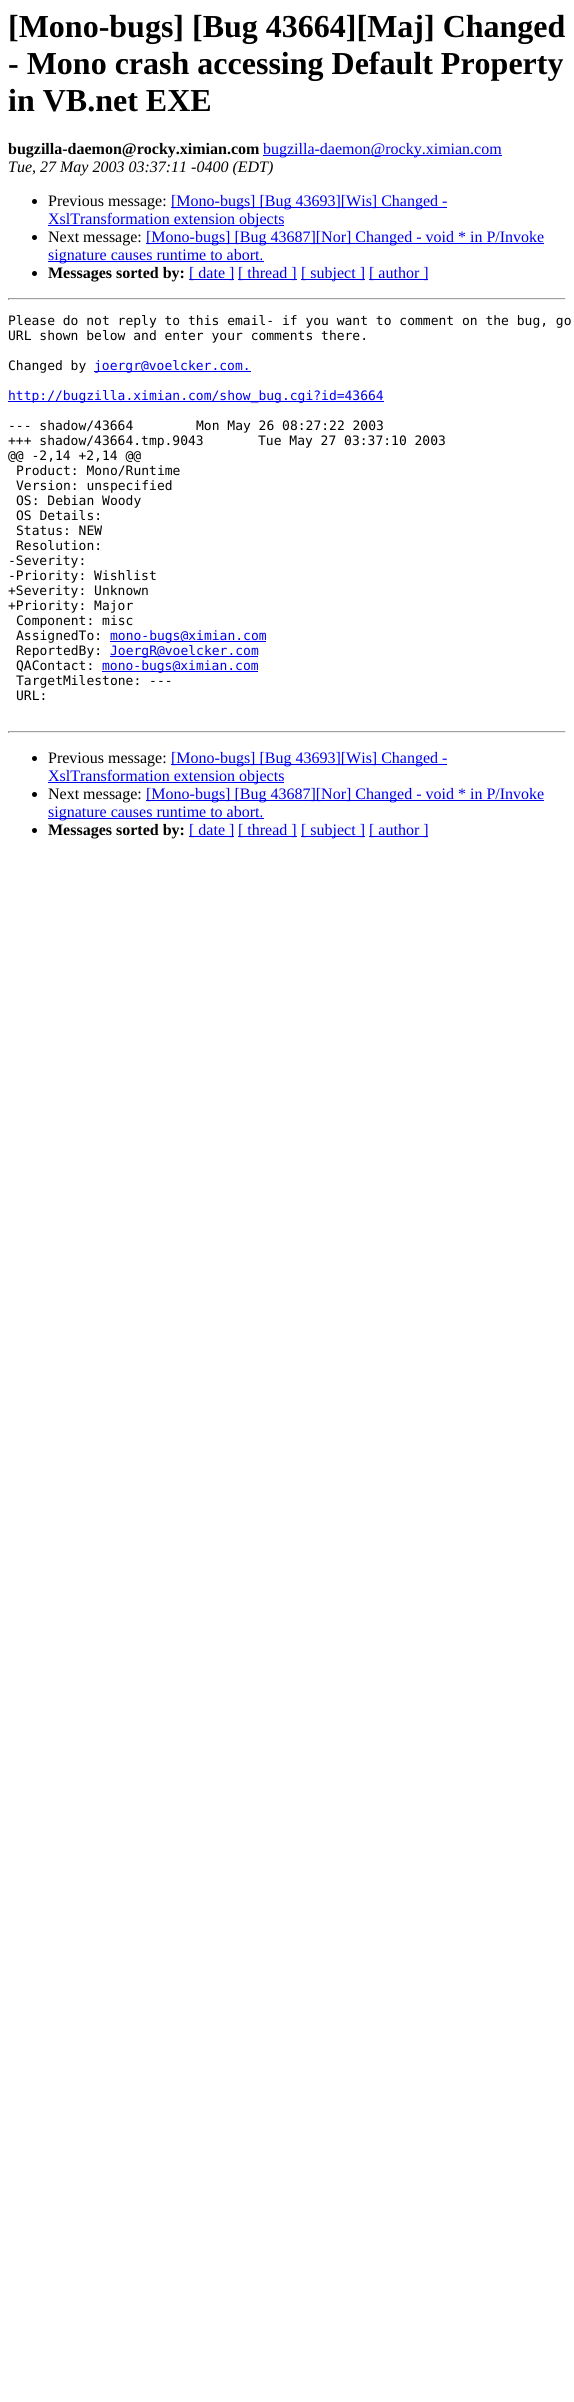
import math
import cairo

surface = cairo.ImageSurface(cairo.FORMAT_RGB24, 574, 2402)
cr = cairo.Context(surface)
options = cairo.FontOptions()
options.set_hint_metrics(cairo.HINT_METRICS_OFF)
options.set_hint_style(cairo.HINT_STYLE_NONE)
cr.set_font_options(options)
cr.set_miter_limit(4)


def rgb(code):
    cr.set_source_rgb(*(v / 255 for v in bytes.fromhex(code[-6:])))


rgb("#ffffff")
cr.paint()
rgb("#0000ee")
cr.rectangle(263, 155, 239, 1)
cr.fill()
rgb("#000000")
cr.arc(34.5, 201.5, 2.5, 0, 2 * math.pi)
cr.fill()
rgb("#0000ee")
cr.rectangle(171, 207, 276, 1)
cr.fill()
cr.rectangle(48, 225, 236, 1)
cr.fill()
rgb("#000000")
cr.arc(34.5, 237.5, 2.5, 0, 2 * math.pi)
cr.fill()
rgb("#0000ee")
cr.rectangle(146, 243, 398, 1)
cr.fill()
cr.rectangle(48, 261, 216, 1)
cr.fill()
rgb("#000000")
cr.arc(34.5, 273.5, 2.5, 0, 2 * math.pi)
cr.fill()
for x, y, w, h, color in [
    (189, 279, 45, 1, "#0000ee"),
    (238, 279, 59, 1, "#0000ee"),
    (301, 279, 64, 1, "#0000ee"),
    (369, 279, 59, 1, "#0000ee"),
    (8, 298, 558, 1, "#9f9f9f"),
    (565, 298, 1, 2, "#eeeeee"),
    (8, 299, 558, 1, "#eeeeee"),
    (8, 298, 1, 2, "#9f9f9f"),
    (94, 371, 157, 1, "#0000ee"),
    (8, 401, 376, 1, "#0000ee"),
    (110, 641, 156, 1, "#0000ee"),
    (110, 656, 148, 1, "#0000ee"),
    (102, 671, 156, 1, "#0000ee"),
    (8, 731, 558, 1, "#9f9f9f"),
    (565, 731, 1, 2, "#eeeeee"),
    (8, 732, 558, 1, "#eeeeee"),
    (8, 731, 1, 2, "#9f9f9f"),
]:
    rgb(color)
    cr.rectangle(x, y, w, h)
    cr.fill()
rgb("#000000")
cr.arc(34.5, 758.5, 2.5, 0, 2 * math.pi)
cr.fill()
rgb("#0000ee")
cr.rectangle(171, 764, 276, 1)
cr.fill()
cr.rectangle(48, 782, 236, 1)
cr.fill()
rgb("#000000")
cr.arc(34.5, 794.5, 2.5, 0, 2 * math.pi)
cr.fill()
rgb("#0000ee")
cr.rectangle(146, 800, 398, 1)
cr.fill()
cr.rectangle(48, 818, 216, 1)
cr.fill()
rgb("#000000")
cr.arc(34.5, 830.5, 2.5, 0, 2 * math.pi)
cr.fill()
for x, y, w, h, color in [
    (189, 836, 45, 1, "#0000ee"),
    (238, 836, 59, 1, "#0000ee"),
    (301, 836, 64, 1, "#0000ee"),
    (369, 836, 59, 1, "#0000ee"),
]:
    rgb(color)
    cr.rectangle(x, y, w, h)
    cr.fill()
cr.select_font_face("Liberation Serif", cairo.FONT_SLANT_NORMAL, cairo.FONT_WEIGHT_BOLD)
cr.set_font_size(32)
rgb("#000000")
for x, y, s in [
    (8, 37, "[Mono-bugs] [Bug 43664][Maj] Changed"),
    (8, 74, "- Mono crash accessing Default Property"),
    (8, 111, "in VB.net EXE"),
]:
    cr.move_to(x, y)
    cr.show_text(s)
cr.set_font_size(16)
cr.move_to(8, 154)
cr.show_text("bugzilla-daemon@rocky.ximian.com")
cr.select_font_face("Liberation Serif")
rgb("#0000ee")
cr.move_to(263, 154)
cr.show_text("bugzilla-daemon@rocky.ximian.com")
cr.select_font_face("Liberation Serif", cairo.FONT_SLANT_ITALIC)
rgb("#000000")
cr.move_to(8, 172)
cr.show_text("Tue, 27 May 2003 03:37:11 -0400 (EDT)")
cr.select_font_face("Liberation Serif")
cr.move_to(48, 206)
cr.show_text("Previous message:")
rgb("#0000ee")
cr.move_to(171, 206)
cr.show_text("[Mono-bugs] [Bug 43693][Wis] Changed -")
cr.move_to(48, 224)
cr.show_text("XslTransformation extension objects")
rgb("#000000")
cr.move_to(48, 242)
cr.show_text("Next message:")
rgb("#0000ee")
cr.move_to(146, 242)
cr.show_text("[Mono-bugs] [Bug 43687][Nor] Changed - void * in P/Invoke")
cr.move_to(48, 260)
cr.show_text("signature causes runtime to abort.")
cr.select_font_face("Liberation Serif", cairo.FONT_SLANT_NORMAL, cairo.FONT_WEIGHT_BOLD)
rgb("#000000")
cr.move_to(48, 278)
cr.show_text("Messages sorted by:")
cr.select_font_face("Liberation Serif")
rgb("#0000ee")
for x, y, s in [
    (189, 278, "[ date ]"),
    (238, 278, "[ thread ]"),
    (301, 278, "[ subject ]"),
    (369, 278, "[ author ]"),
]:
    cr.move_to(x, y)
    cr.show_text(s)
cr.select_font_face("DejaVu Sans Mono")
cr.set_font_size(13)
rgb("#000000")
for x, y, s in [
    (8, 325, "Please do not reply to this email- if you want to comment on the bug, go"),
    (8, 340, "URL shown below and enter your comments there."),
    (8, 370, "Changed by"),
]:
    cr.move_to(x, y)
    cr.show_text(s)
rgb("#0000ee")
cr.move_to(94, 370)
cr.show_text("joergr@voelcker.com.")
cr.move_to(8, 400)
cr.show_text("http://bugzilla.ximian.com/show_bug.cgi?id=43664")
rgb("#000000")
for x, y, s in [
    (8, 430, "--- shadow/43664"),
    (196, 430, "Mon May 26 08:27:22 2003"),
    (8, 445, "+++ shadow/43664.tmp.9043"),
    (258, 445, "Tue May 27 03:37:10 2003"),
    (8, 460, "@@ -2,14 +2,14 @@"),
    (16, 475, "Product: Mono/Runtime"),
    (16, 490, "Version: unspecified"),
    (16, 505, "OS: Debian Woody"),
    (16, 520, "OS Details:"),
    (16, 535, "Status: NEW"),
    (16, 550, "Resolution:"),
    (8, 565, "-Severity:"),
    (8, 580, "-Priority: Wishlist"),
    (8, 595, "+Severity: Unknown"),
    (8, 610, "+Priority: Major"),
    (16, 625, "Component: misc"),
    (16, 640, "AssignedTo:"),
]:
    cr.move_to(x, y)
    cr.show_text(s)
rgb("#0000ee")
cr.move_to(110, 640)
cr.show_text("mono-bugs@ximian.com")
rgb("#000000")
cr.move_to(16, 655)
cr.show_text("ReportedBy:")
rgb("#0000ee")
cr.move_to(110, 655)
cr.show_text("JoergR@voelcker.com")
rgb("#000000")
cr.move_to(16, 670)
cr.show_text("QAContact:")
rgb("#0000ee")
cr.move_to(102, 670)
cr.show_text("mono-bugs@ximian.com")
rgb("#000000")
cr.move_to(16, 685)
cr.show_text("TargetMilestone: ---")
cr.move_to(16, 700)
cr.show_text("URL:")
cr.select_font_face("Liberation Serif")
cr.set_font_size(16)
cr.move_to(48, 763)
cr.show_text("Previous message:")
rgb("#0000ee")
cr.move_to(171, 763)
cr.show_text("[Mono-bugs] [Bug 43693][Wis] Changed -")
cr.move_to(48, 781)
cr.show_text("XslTransformation extension objects")
rgb("#000000")
cr.move_to(48, 799)
cr.show_text("Next message:")
rgb("#0000ee")
cr.move_to(146, 799)
cr.show_text("[Mono-bugs] [Bug 43687][Nor] Changed - void * in P/Invoke")
cr.move_to(48, 817)
cr.show_text("signature causes runtime to abort.")
cr.select_font_face("Liberation Serif", cairo.FONT_SLANT_NORMAL, cairo.FONT_WEIGHT_BOLD)
rgb("#000000")
cr.move_to(48, 835)
cr.show_text("Messages sorted by:")
cr.select_font_face("Liberation Serif")
rgb("#0000ee")
for x, y, s in [
    (189, 835, "[ date ]"),
    (238, 835, "[ thread ]"),
    (301, 835, "[ subject ]"),
    (369, 835, "[ author ]"),
]:
    cr.move_to(x, y)
    cr.show_text(s)
surface.write_to_png("page.png")
